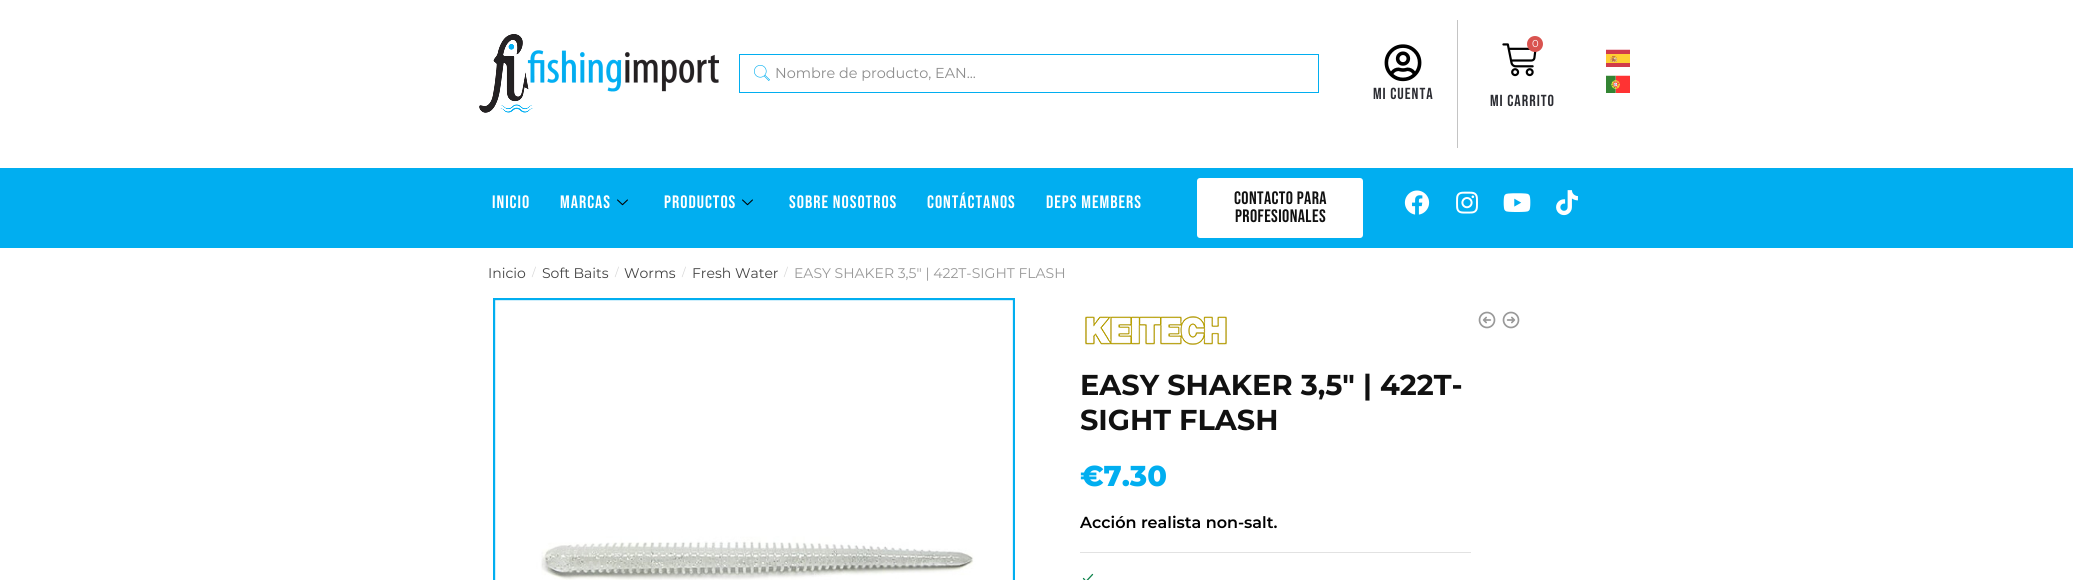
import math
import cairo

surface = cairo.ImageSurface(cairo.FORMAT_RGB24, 2073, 580)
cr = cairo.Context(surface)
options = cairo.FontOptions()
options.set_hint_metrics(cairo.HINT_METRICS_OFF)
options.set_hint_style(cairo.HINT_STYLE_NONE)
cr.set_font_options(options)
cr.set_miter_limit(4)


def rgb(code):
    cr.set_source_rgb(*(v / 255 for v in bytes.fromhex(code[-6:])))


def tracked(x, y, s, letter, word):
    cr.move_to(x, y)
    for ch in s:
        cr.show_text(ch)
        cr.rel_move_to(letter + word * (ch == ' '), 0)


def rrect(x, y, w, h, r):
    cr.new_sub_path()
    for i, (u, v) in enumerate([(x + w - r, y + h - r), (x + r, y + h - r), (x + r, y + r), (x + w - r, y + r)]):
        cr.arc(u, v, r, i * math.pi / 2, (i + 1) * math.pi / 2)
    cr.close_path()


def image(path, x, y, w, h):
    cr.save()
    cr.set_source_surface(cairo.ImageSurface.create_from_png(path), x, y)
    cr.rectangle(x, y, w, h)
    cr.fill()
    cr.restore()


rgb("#ffffff")
cr.paint()
image("img/1.png", 479, 34, 240, 79)
cr.rectangle(739.5, 54.5, 579, 38)
rgb("#01aef0")
cr.set_line_width(1)
cr.stroke()
image("img/2.png", 754, 65, 16, 16)
rgb("#c4c4c4")
cr.rectangle(1457, 20, 1, 128)
cr.fill()
image("img/3.png", 1384, 44, 38, 38)
image("img/4.png", 1502, 43, 35, 34)
rgb("#d9534f")
cr.arc(1535, 44, 8, 0, 2 * math.pi)
cr.fill()
image("img/5.png", 1606, 49, 24, 18)
image("img/6.png", 1606, 75, 24, 18)
rgb("#01aef0")
cr.rectangle(0, 168, 2073, 80)
cr.fill()
image("img/7.png", 617, 199, 11, 7)
image("img/7.png", 742, 199, 11, 7)
rgb("#ffffff")
rrect(1197, 178, 166, 60, 3)
cr.fill()
image("img/8.png", 1404, 190, 26, 25)
image("img/9.png", 1456, 191, 22, 23)
image("img/10.png", 1503, 193, 28, 19)
image("img/11.png", 1556, 190, 22, 26)
image("img/12.png", 493, 298, 522, 282)
image("img/13.png", 1085, 316, 142, 30)
image("img/14.png", 1478, 311, 18, 18)
image("img/15.png", 1502, 311, 18, 18)
rgb("#e2e2e2")
cr.rectangle(1080, 552, 391, 1)
cr.fill()
cr.new_path()
cr.move_to(1083.5, 578.5)
cr.line_to(1086, 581.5)
cr.line_to(1092.5, 574.5)
rgb("#0f834d")
cr.set_line_width(1.3)
cr.set_line_cap(cairo.LINE_CAP_ROUND)
cr.set_line_join(cairo.LINE_JOIN_ROUND)
cr.stroke()
cr.select_font_face("Montserrat")
cr.set_font_size(14.4)
rgb("#8d8d8d")
cr.move_to(775, 78)
cr.show_text("Nombre de producto, EAN...")
cr.select_font_face("Bebas Neue")
cr.set_font_size(16)
rgb("#2c2d33")
tracked(1373, 99, "Mi cuenta", 1, 0)
cr.select_font_face("Montserrat")
cr.set_font_size(10)
rgb("#ffffff")
cr.move_to(1532, 47)
cr.show_text("0")
cr.select_font_face("Bebas Neue")
cr.set_font_size(16)
rgb("#2c2d33")
tracked(1490, 106, "Mi carrito", 1, 0)
cr.set_font_size(18)
rgb("#ffffff")
for x, y, s in [
    (492, 208, "INICIO"),
    (560, 208, "MARCAS"),
    (664, 208, "PRODUCTOS"),
    (789, 208, "SOBRE NOSOTROS"),
    (927, 208, "CONTÁCTANOS"),
    (1046, 208, "DEPS MEMBERS"),
]:
    tracked(x, y, s, 1, 0)
rgb("#111111")
tracked(1234, 204, "CONTACTO PARA", 0.4, 0)
tracked(1235, 222, "PROFESIONALES", 0.4, 0)
cr.select_font_face("Montserrat")
cr.set_font_size(14)
rgb("#444444")
cr.move_to(488, 278)
cr.show_text("Inicio")
cr.set_font_size(11)
rgb("#d6d6d6")
cr.move_to(532, 276)
cr.show_text("/")
cr.set_font_size(14)
rgb("#444444")
cr.move_to(542, 278)
cr.show_text("Soft Baits")
cr.set_font_size(11)
rgb("#d6d6d6")
cr.move_to(615, 276)
cr.show_text("/")
cr.set_font_size(14)
rgb("#444444")
cr.move_to(624, 278)
cr.show_text("Worms")
cr.set_font_size(11)
rgb("#d6d6d6")
cr.move_to(682, 276)
cr.show_text("/")
cr.set_font_size(14)
rgb("#444444")
cr.move_to(692, 278)
cr.show_text("Fresh Water")
cr.set_font_size(11)
rgb("#d6d6d6")
cr.move_to(784, 276)
cr.show_text("/")
cr.set_font_size(14)
rgb("#999999")
cr.move_to(794, 278)
cr.show_text("EASY SHAKER 3,5\" | 422T-SIGHT FLASH")
cr.select_font_face("Montserrat", cairo.FONT_SLANT_NORMAL, cairo.FONT_WEIGHT_BOLD)
cr.set_font_size(28.75)
rgb("#111111")
cr.move_to(1080, 395)
cr.show_text("EASY SHAKER 3,5\" | 422T-")
cr.move_to(1080, 430)
cr.show_text("SIGHT FLASH")
cr.select_font_face("Montserrat ExtraBold")
rgb("#01aef0")
cr.move_to(1080, 486)
cr.show_text("€7.30")
cr.select_font_face("Montserrat SemiBold")
cr.set_font_size(16)
rgb("#000000")
cr.move_to(1080, 528)
cr.show_text("Acción realista non-salt.")
surface.write_to_png("page.png")
